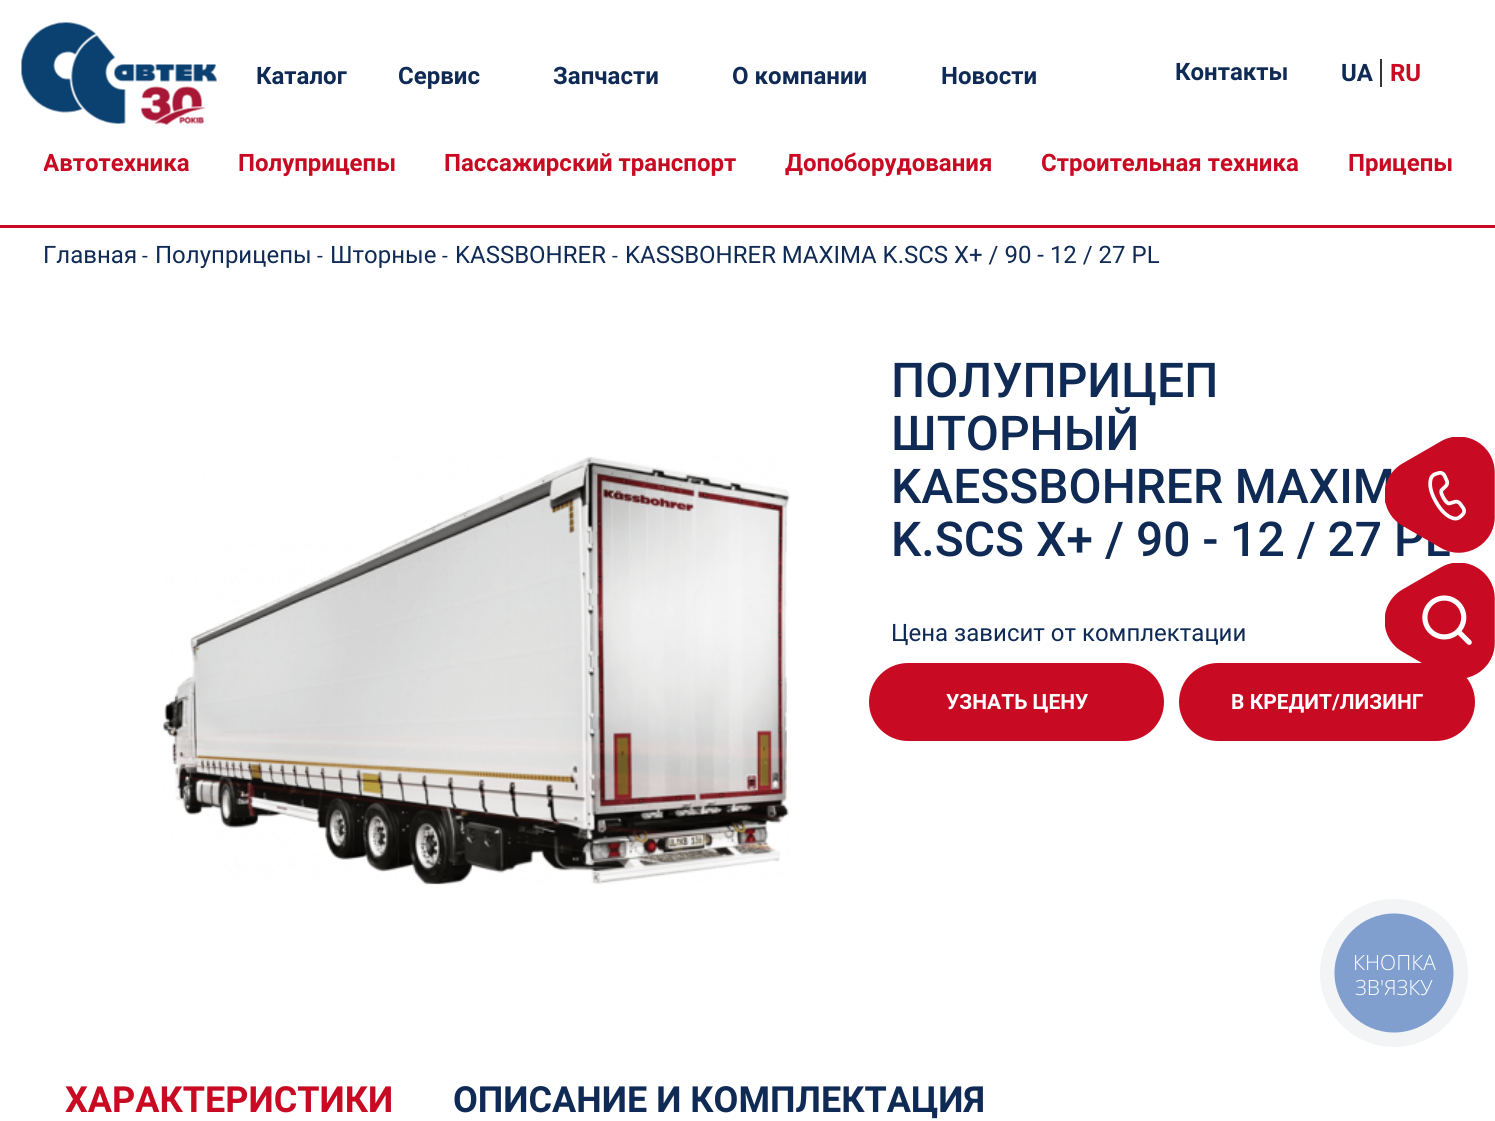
import math
import cairo

surface = cairo.ImageSurface(cairo.FORMAT_RGB24, 1495, 1121)
cr = cairo.Context(surface)
options = cairo.FontOptions()
options.set_hint_metrics(cairo.HINT_METRICS_OFF)
options.set_hint_style(cairo.HINT_STYLE_NONE)
cr.set_font_options(options)
cr.set_miter_limit(4)


def rgb(code):
    cr.set_source_rgb(*(v / 255 for v in bytes.fromhex(code[-6:])))


def rrect(x, y, w, h, r):
    cr.new_sub_path()
    for i, (u, v) in enumerate([(x + w - r, y + h - r), (x + r, y + h - r), (x + r, y + r), (x + w - r, y + r)]):
        cr.arc(u, v, r, i * math.pi / 2, (i + 1) * math.pi / 2)
    cr.close_path()


def image(path, x, y, w, h):
    cr.save()
    cr.set_source_surface(cairo.ImageSurface.create_from_png(path), x, y)
    cr.rectangle(x, y, w, h)
    cr.fill()
    cr.restore()


rgb("#ffffff")
cr.paint()
image("img/1.png", 21, 22, 196, 103)
rgb("#333333")
cr.rectangle(1380, 59, 2, 28)
cr.fill()
rgb("#c80a22")
cr.rectangle(0, 225, 1495, 3)
cr.fill()
image("img/2.png", 163, 456, 627, 429)
rrect(870.5, 664.5, 292, 75, 37.5)
cr.fill_preserve()
cr.set_line_width(3)
cr.stroke()
rrect(1180.5, 664.5, 293, 75, 37.5)
cr.fill_preserve()
cr.stroke()
image("img/4.png", 1385, 563, 110, 115)
rgb("#f2f4f5")
cr.arc(1394, 973, 74, 0, 2 * math.pi)
cr.fill()
rgb("#809fcf")
cr.arc(1394, 973, 59.5, 0, 2 * math.pi)
cr.fill()
cr.select_font_face("Roboto", cairo.FONT_SLANT_NORMAL, cairo.FONT_WEIGHT_BOLD)
cr.set_font_size(24)
rgb("#0f2a54")
cr.move_to(1175, 80)
cr.show_text("Контакты")
cr.move_to(1341, 81)
cr.show_text("UA")
rgb("#c80a22")
cr.move_to(1390, 81)
cr.show_text("RU")
rgb("#0f2a54")
cr.move_to(256, 84)
cr.show_text("Каталог")
cr.save()
cr.rectangle(44, 140, 1410, 55)
cr.clip()
rgb("#c80a22")
cr.move_to(43, 171)
cr.show_text("Автотехника")
cr.restore()
rgb("#c80a22")
for x, y, s in [
    (238, 171, "Полуприцепы"),
    (444, 171, "Пассажирский транспорт"),
    (785, 171, "Допоборудования"),
    (1041, 171, "Строительная техника"),
    (1348, 171, "Прицепы"),
]:
    cr.move_to(x, y)
    cr.show_text(s)
rgb("#0f2a54")
for x, y, s in [
    (398, 84, "Сервис"),
    (553, 84, "Запчасти"),
    (732, 84, "О компании"),
    (941, 84, "Новости"),
]:
    cr.move_to(x, y)
    cr.show_text(s)
cr.select_font_face("Roboto")
cr.move_to(43, 263)
cr.show_text("Главная")
cr.set_font_size(21)
cr.move_to(142, 263)
cr.show_text("-")
cr.set_font_size(24)
cr.move_to(155, 263)
cr.show_text("Полуприцепы")
cr.set_font_size(21)
cr.move_to(317, 263)
cr.show_text("-")
cr.set_font_size(24)
cr.move_to(330, 263)
cr.show_text("Шторные")
cr.set_font_size(21)
cr.move_to(442, 263)
cr.show_text("-")
cr.set_font_size(24)
cr.move_to(455, 263)
cr.show_text("KASSBOHRER")
cr.set_font_size(21)
cr.move_to(612, 263)
cr.show_text("-")
cr.set_font_size(24)
cr.move_to(625, 263)
cr.show_text("KASSBOHRER MAXIMA K.SCS X+ / 90 - 12 / 27 PL")
cr.select_font_face("Roboto Medium")
cr.set_font_size(48)
for x, y, s in [
    (891, 397, "ПОЛУПРИЦЕП"),
    (891, 450, "ШТОРНЫЙ"),
    (891, 503, "KAESSBOHRER MAXIM"),
    (891, 556, "K.SCS X+ / 90 - 12 / 27 PL"),
]:
    cr.move_to(x, y)
    cr.show_text(s)
cr.select_font_face("Roboto")
cr.set_font_size(24)
cr.move_to(891, 641)
cr.show_text("Цена зависит от комплектации")
cr.select_font_face("Roboto", cairo.FONT_SLANT_NORMAL, cairo.FONT_WEIGHT_BOLD)
cr.set_font_size(21)
rgb("#ffffff")
cr.move_to(946, 709)
cr.show_text("УЗНАТЬ ЦЕНУ")
cr.move_to(1231, 709)
cr.show_text("В КРЕДИТ/ЛИЗИНГ")
cr.set_font_size(36)
rgb("#c80a22")
cr.move_to(65, 1112)
cr.show_text("ХАРАКТЕРИСТИКИ")
rgb("#0f2a54")
cr.move_to(453, 1112)
cr.show_text("ОПИСАНИЕ И КОМПЛЕКТАЦИЯ")
image("img/3.png", 1385, 437, 110, 116)
cr.select_font_face("Open Sans Light")
cr.set_font_size(21)
rgb("#ffffff")
cr.move_to(1353, 970)
cr.show_text("КНОПКА")
cr.move_to(1355, 995)
cr.show_text("ЗВ'ЯЗКУ")
surface.write_to_png("page.png")
